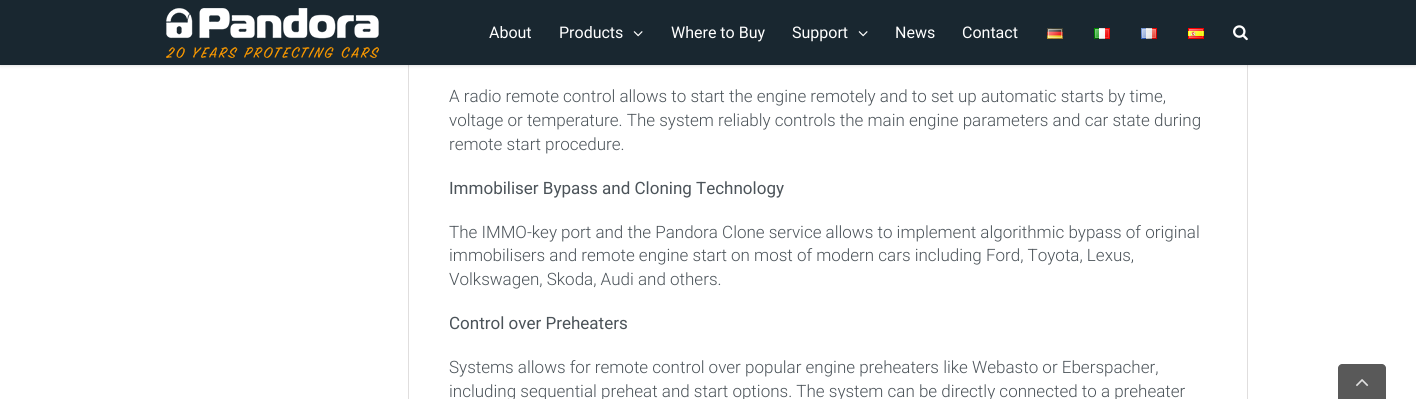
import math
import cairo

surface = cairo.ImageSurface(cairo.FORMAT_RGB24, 1416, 399)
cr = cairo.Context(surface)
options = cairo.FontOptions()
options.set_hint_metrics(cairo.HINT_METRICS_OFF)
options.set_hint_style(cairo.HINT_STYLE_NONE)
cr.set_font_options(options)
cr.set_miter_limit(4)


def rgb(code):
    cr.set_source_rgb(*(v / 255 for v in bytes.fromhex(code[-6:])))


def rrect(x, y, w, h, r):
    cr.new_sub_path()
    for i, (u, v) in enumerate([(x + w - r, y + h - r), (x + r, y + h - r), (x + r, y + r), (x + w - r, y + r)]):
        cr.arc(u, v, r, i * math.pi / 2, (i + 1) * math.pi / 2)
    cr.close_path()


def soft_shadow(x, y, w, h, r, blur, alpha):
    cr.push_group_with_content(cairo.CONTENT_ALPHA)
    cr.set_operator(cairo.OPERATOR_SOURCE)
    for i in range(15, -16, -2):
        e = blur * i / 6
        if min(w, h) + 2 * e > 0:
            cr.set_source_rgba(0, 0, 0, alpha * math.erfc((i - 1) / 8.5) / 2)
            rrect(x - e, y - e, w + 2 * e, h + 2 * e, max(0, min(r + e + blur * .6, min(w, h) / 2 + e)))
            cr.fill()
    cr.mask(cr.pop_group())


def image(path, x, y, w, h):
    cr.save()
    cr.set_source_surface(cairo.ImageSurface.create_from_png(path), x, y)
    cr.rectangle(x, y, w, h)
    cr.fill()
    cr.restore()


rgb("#ffffff")
cr.paint()
cr.rectangle(408.5, -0.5, 839, 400)
rgb("#e0dede")
cr.set_line_width(1)
cr.stroke()
rgb("#000000")
soft_shadow(0, 1, 1416, 65, 0, 1.5, 0.12)
rgb("#192730")
cr.rectangle(0, 0, 1416, 65)
cr.fill()
image("img/1.png", 166, 8, 213, 50)
image("img/2.png", 633, 31, 10, 6)
image("img/2.png", 858, 31, 10, 6)
image("img/3.png", 1047, 28, 16, 11)
image("img/4.png", 1094, 28, 16, 11)
image("img/5.png", 1141, 28, 16, 11)
image("img/6.png", 1188, 28, 16, 11)
image("img/7.png", 1233, 25, 15, 16)
rgb("#595959")
cr.new_path()
cr.move_to(1342, 364)
cr.line_to(1382, 364)
cr.curve_to(1384, 364, 1386, 366, 1386, 368)
cr.line_to(1386, 399)
cr.line_to(1338, 399)
cr.line_to(1338, 368)
cr.curve_to(1338, 366, 1340, 364, 1342, 364)
cr.close_path()
cr.fill()
image("img/8.png", 1356, 379, 13, 8)
cr.select_font_face("Roboto")
cr.set_font_size(16)
rgb("#ffffff")
for x, y, s in [
    (489, 38, "About"),
    (559, 38, "Products"),
    (671, 38, "Where to Buy"),
    (792, 38, "Support"),
    (895, 38, "News"),
    (962, 38, "Contact"),
]:
    cr.move_to(x, y)
    cr.show_text(s)
cr.select_font_face("Roboto Light")
cr.set_font_size(17)
rgb("#4b5359")
for x, y, s in [
    (449, 102, "A radio remote control allows to start the engine remotely and to set up automatic starts by time,"),
    (449, 126, "voltage or temperature. The system reliably controls the main engine parameters and car state during"),
    (449, 150, "remote start procedure."),
]:
    cr.move_to(x, y)
    cr.show_text(s)
cr.select_font_face("Roboto")
cr.move_to(449, 194)
cr.show_text("Immobiliser Bypass and Cloning Technology")
cr.select_font_face("Roboto Light")
for x, y, s in [
    (449, 238, "The IMMO-key port and the Pandora Clone service allows to implement algorithmic bypass of original"),
    (449, 261, "immobilisers and remote engine start on most of modern cars including Ford, Toyota, Lexus,"),
    (449, 285, "Volkswagen, Skoda, Audi and others."),
]:
    cr.move_to(x, y)
    cr.show_text(s)
cr.select_font_face("Roboto")
cr.move_to(449, 329)
cr.show_text("Control over Preheaters")
cr.select_font_face("Roboto Light")
cr.move_to(449, 373)
cr.show_text("Systems allows for remote control over popular engine preheaters like Webasto or Eberspacher,")
cr.move_to(449, 397)
cr.show_text("including sequential preheat and start options. The system can be directly connected to a preheater")
surface.write_to_png("page.png")
